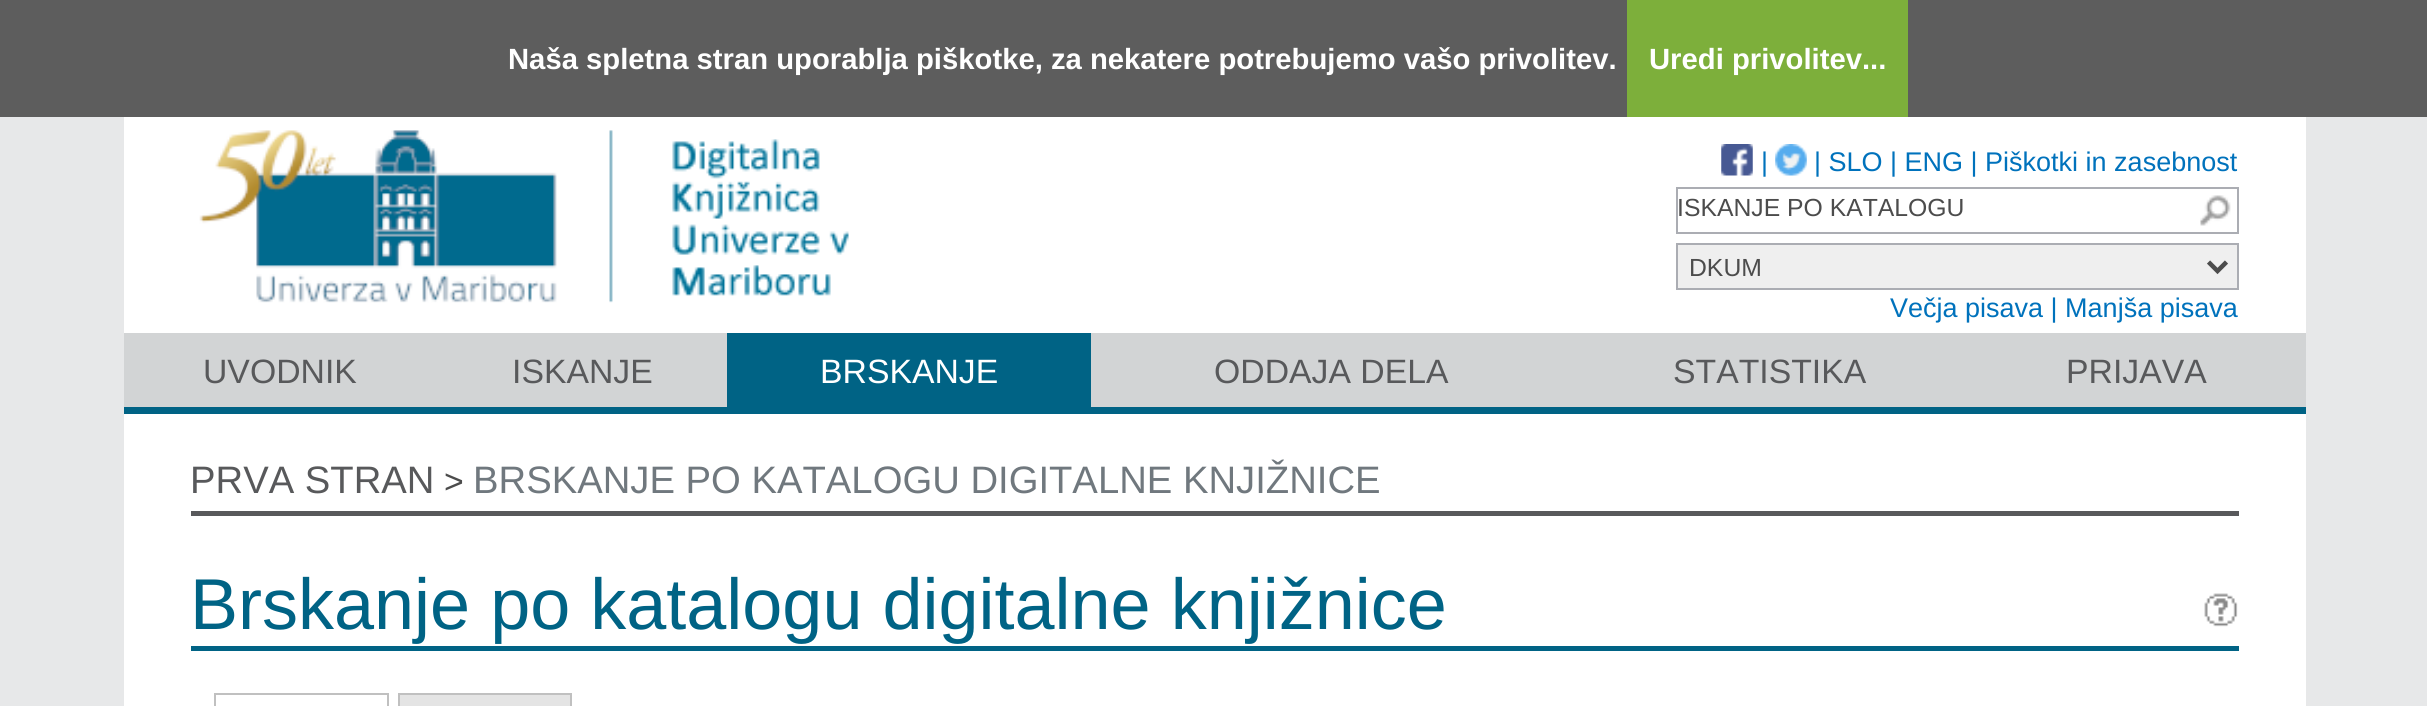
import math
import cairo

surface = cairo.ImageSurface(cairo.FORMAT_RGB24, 2427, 706)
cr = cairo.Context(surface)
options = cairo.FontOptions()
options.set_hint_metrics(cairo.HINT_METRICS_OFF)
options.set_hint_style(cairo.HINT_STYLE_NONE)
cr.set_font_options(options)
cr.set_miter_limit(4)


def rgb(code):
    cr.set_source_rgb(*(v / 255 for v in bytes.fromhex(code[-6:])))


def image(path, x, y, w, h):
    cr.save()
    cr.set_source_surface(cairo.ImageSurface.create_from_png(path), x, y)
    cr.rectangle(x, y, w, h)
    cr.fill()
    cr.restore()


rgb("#e7e8e9")
cr.paint()
for x, y, w, h, color in [
    (0, 0, 2427, 117, "#5d5d5d"),
    (1627, 0, 281, 117, "#7daf3b"),
    (124, 117, 2182, 589, "#ffffff"),
]:
    rgb(color)
    cr.rectangle(x, y, w, h)
    cr.fill()
image("img/1.png", 199, 130, 650, 173)
image("img/2.png", 1721, 144, 32, 32)
image("img/3.png", 1775, 144, 32, 32)
cr.rectangle(1677, 188, 561, 45)
rgb("#abadb3")
cr.stroke()
image("img/4.png", 2200, 195, 31, 31)
rgb("#efefef")
cr.rectangle(1677, 244, 561, 45)
cr.fill_preserve()
rgb("#abadb3")
cr.stroke()
cr.new_path()
cr.move_to(2208.5, 262)
cr.line_to(2217.5, 271)
cr.line_to(2226.5, 262)
rgb("#4c4c4c")
cr.set_line_width(4.5)
cr.stroke()
for x, y, w, h, color in [
    (124, 333, 2182, 74, "#d2d4d5"),
    (124, 407, 2182, 7, "#006385"),
    (727, 333, 364, 74, "#006385"),
    (191, 511, 2048, 5, "#58595b"),
    (191, 646, 2048, 5, "#006385"),
]:
    rgb(color)
    cr.rectangle(x, y, w, h)
    cr.fill()
image("img/5.png", 2204, 593, 34, 34)
for x, y, w, h, color in [
    (214, 693, 175, 2, "#c0c0c0"),
    (214, 693, 2, 13, "#c0c0c0"),
    (387, 693, 2, 13, "#c0c0c0"),
]:
    rgb(color)
    cr.rectangle(x, y, w, h)
    cr.fill()
rgb("#e4e4e4")
cr.rectangle(399, 694, 172, 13)
cr.fill_preserve()
rgb("#c0c0c0")
cr.set_line_width(2)
cr.stroke()
cr.select_font_face("Liberation Sans", cairo.FONT_SLANT_NORMAL, cairo.FONT_WEIGHT_BOLD)
cr.set_font_size(29.25)
rgb("#ffffff")
cr.move_to(508, 69)
cr.show_text("Naša spletna stran uporablja piškotke, za nekatere potrebujemo vašo privolitev.")
cr.move_to(1649, 69)
cr.show_text("Uredi privolitev...")
cr.select_font_face("Liberation Sans")
cr.set_font_size(27)
rgb("#0072bc")
cr.move_to(1761, 171)
cr.show_text("|")
cr.move_to(1814, 171)
cr.show_text("| SLO | ENG | Piškotki in zasebnost")
cr.set_font_size(24.75)
rgb("#4c4c4c")
cr.move_to(1677, 216)
cr.show_text("ISKANJE PO KATALOGU")
cr.move_to(1689, 276)
cr.show_text("DKUM")
cr.set_font_size(27)
rgb("#0072bc")
cr.move_to(1890, 317)
cr.show_text("Večja pisava | Manjša pisava")
cr.set_font_size(33.75)
rgb("#58595b")
cr.move_to(203, 383)
cr.show_text("UVODNIK")
cr.move_to(512, 383)
cr.show_text("ISKANJE")
rgb("#ffffff")
cr.move_to(820, 383)
cr.show_text("BRSKANJE")
rgb("#58595b")
for x, y, s in [
    (1214, 383, "ODDAJA DELA"),
    (1673, 383, "STATISTIKA"),
    (2066, 383, "PRIJAVA"),
]:
    cr.move_to(x, y)
    cr.show_text(s)
cr.set_font_size(38.25)
cr.move_to(190, 493)
cr.show_text("PRVA STRAN")
cr.set_font_size(33.75)
rgb("#4c4c4c")
cr.move_to(444, 493)
cr.show_text(">")
cr.set_font_size(38.25)
rgb("#70787e")
cr.move_to(473, 493)
cr.show_text("BRSKANJE PO KATALOGU DIGITALNE KNJIŽNICE")
cr.set_font_size(72)
rgb("#006385")
cr.move_to(190, 629)
cr.show_text("Brskanje po katalogu digitalne knjižnice")
surface.write_to_png("page.png")
